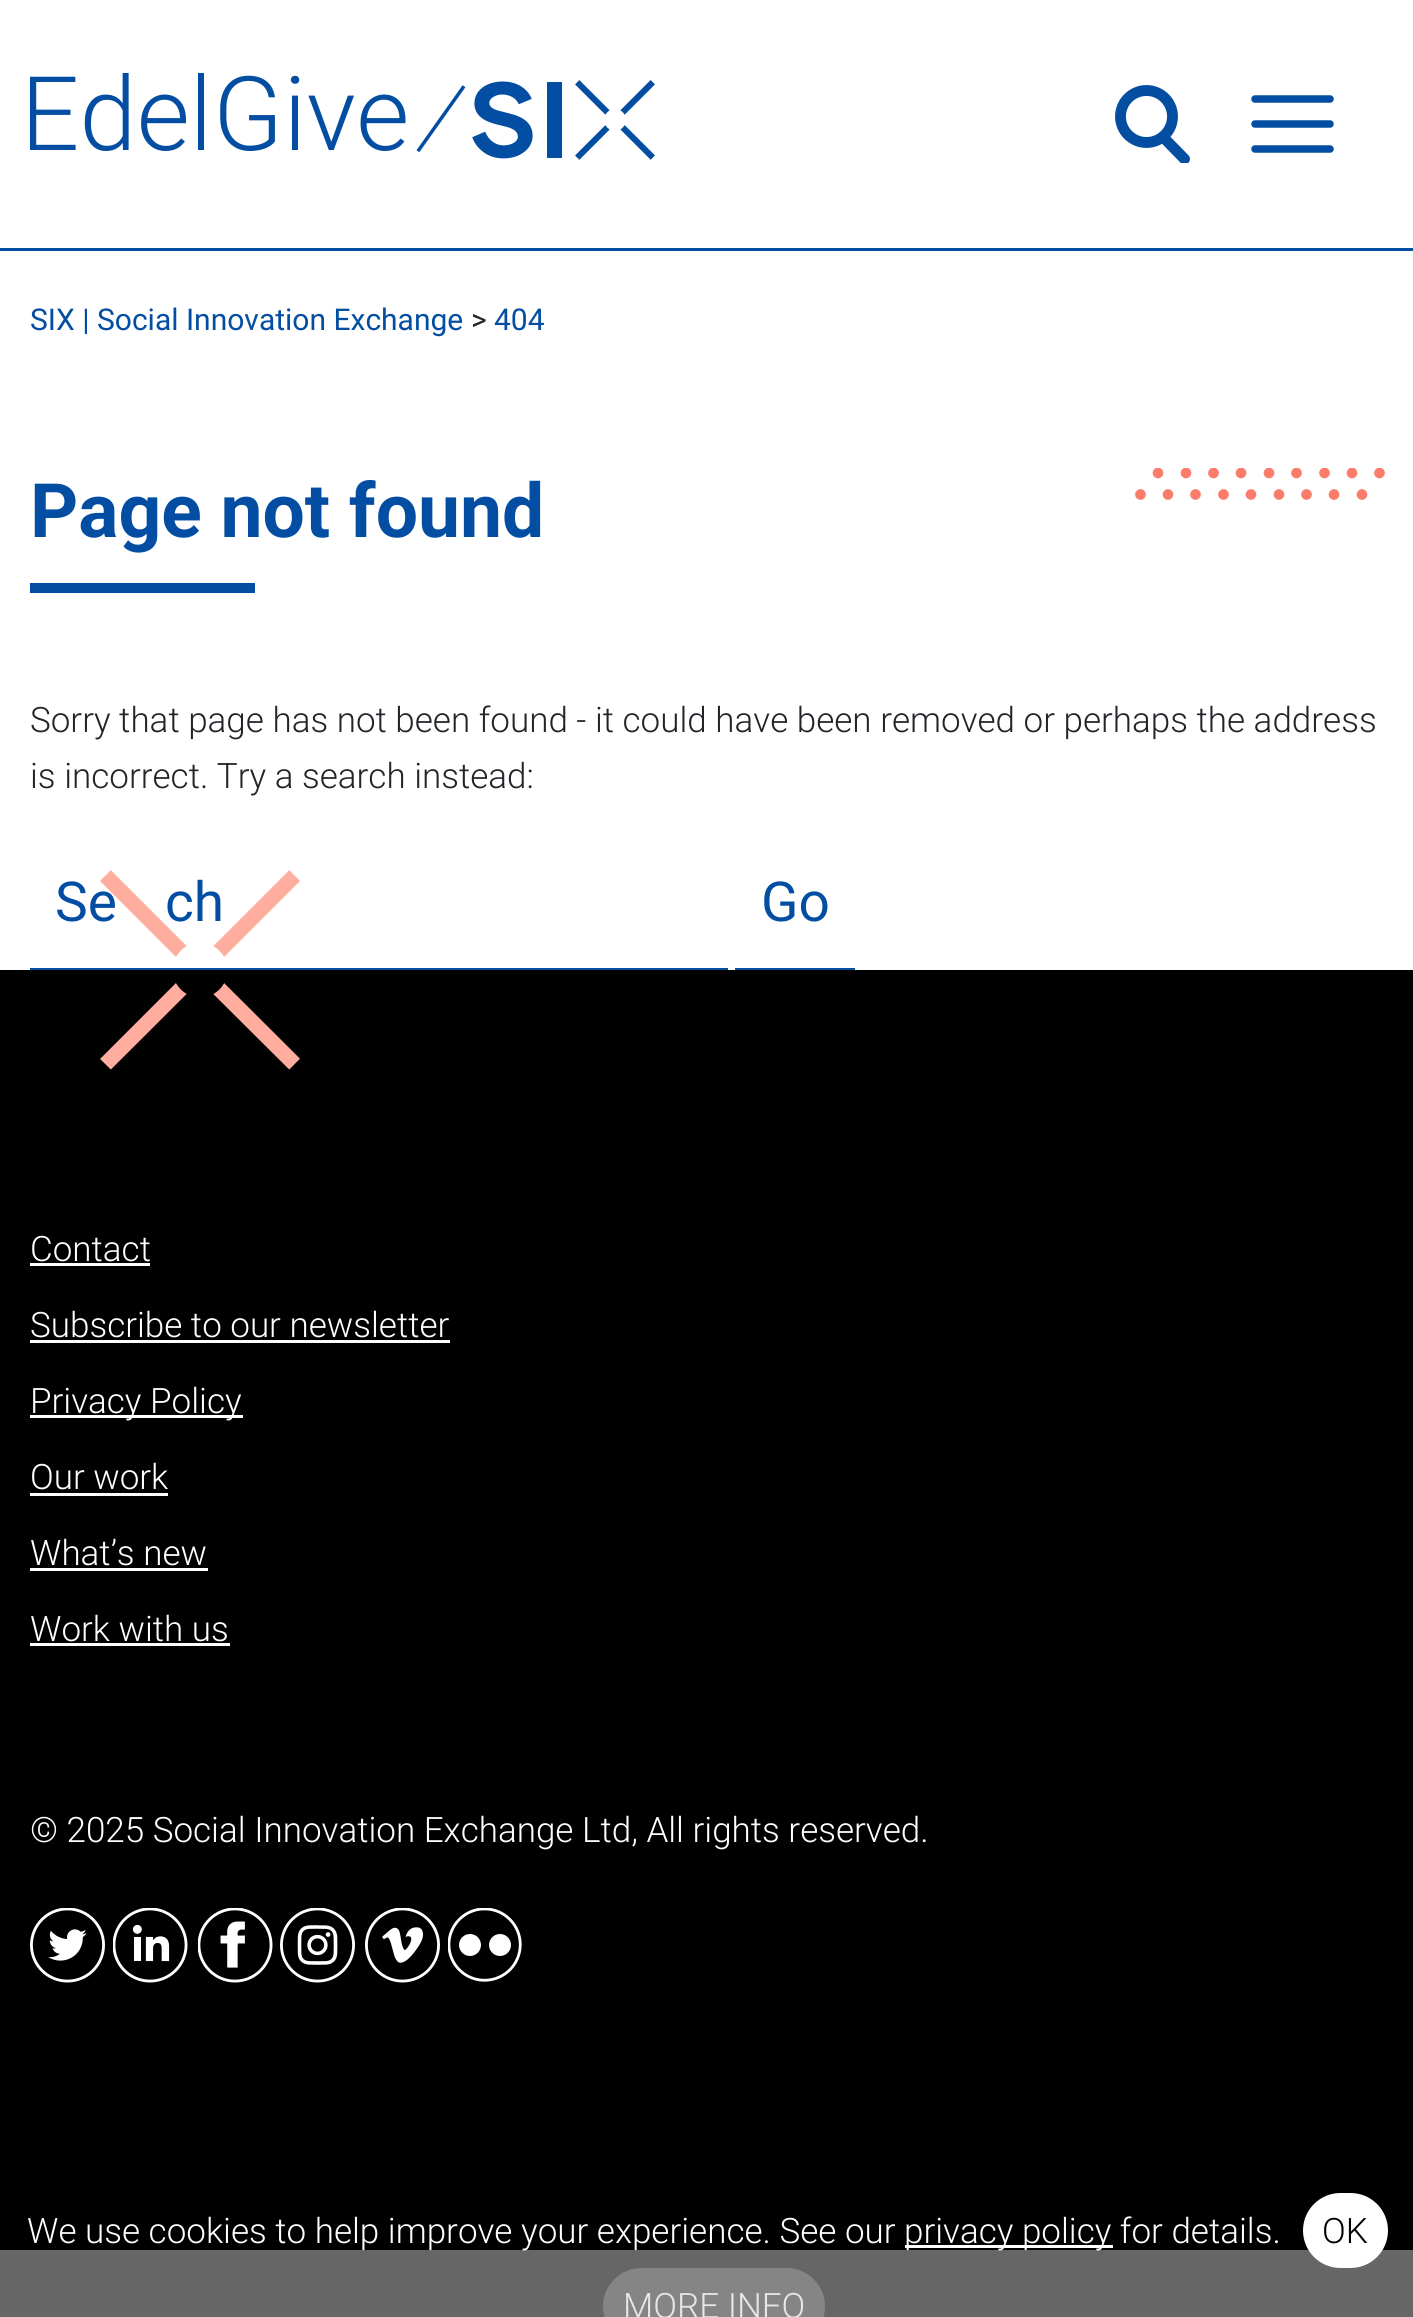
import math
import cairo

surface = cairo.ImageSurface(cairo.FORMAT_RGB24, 1413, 2317)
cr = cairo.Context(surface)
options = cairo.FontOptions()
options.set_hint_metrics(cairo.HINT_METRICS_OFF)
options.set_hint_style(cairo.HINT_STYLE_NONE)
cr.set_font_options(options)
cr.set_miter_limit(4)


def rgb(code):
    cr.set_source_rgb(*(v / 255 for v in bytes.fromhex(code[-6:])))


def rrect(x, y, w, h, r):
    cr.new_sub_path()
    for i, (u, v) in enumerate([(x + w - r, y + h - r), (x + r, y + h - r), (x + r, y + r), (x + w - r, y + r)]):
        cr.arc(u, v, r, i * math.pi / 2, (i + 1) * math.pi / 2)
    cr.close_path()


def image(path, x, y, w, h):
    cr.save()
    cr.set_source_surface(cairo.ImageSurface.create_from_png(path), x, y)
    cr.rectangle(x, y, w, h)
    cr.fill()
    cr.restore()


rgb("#ffffff")
cr.paint()
rgb("#666666")
cr.rectangle(0, 2250, 1413, 67)
cr.fill()
rgb("#034ea2")
cr.rectangle(0, 248, 1413, 3)
cr.fill()
image("img/1.png", 30, 73, 625, 87)
cr.arc(1146.5, 116.5, 26, 0, 2 * math.pi)
rgb("#044ea2")
cr.set_line_width(10.9)
cr.stroke()
cr.save()
cr.rectangle(1115, 85, 75, 78)
cr.clip()
cr.new_path()
cr.move_to(1163, 137)
cr.line_to(1184.5, 159)
cr.set_line_cap(cairo.LINE_CAP_ROUND)
cr.set_line_join(cairo.LINE_JOIN_ROUND)
cr.stroke()
cr.restore()
cr.new_path()
cr.move_to(1255, 99)
cr.line_to(1330, 99)
rgb("#034ea2")
cr.set_line_width(7.5)
cr.set_line_cap(cairo.LINE_CAP_ROUND)
cr.set_line_join(cairo.LINE_JOIN_ROUND)
cr.stroke()
cr.new_path()
cr.move_to(1255, 124)
cr.line_to(1330, 124)
cr.stroke()
cr.new_path()
cr.move_to(1255, 149)
cr.line_to(1330, 149)
cr.stroke()
image("img/2.png", 1135, 468, 250, 32)
for x, y, w, h, color in [
    (30, 583, 225, 10, "#034ea2"),
    (30, 968, 698, 2, "#034ea2"),
    (735, 968, 120, 2, "#034ea2"),
    (0, 970, 1413, 1280, "#000000"),
    (30, 1263, 120, 3, "#ffffff"),
    (30, 1340, 420, 3, "#ffffff"),
    (30, 1415, 213, 3, "#ffffff"),
    (30, 1493, 138, 3, "#ffffff"),
    (30, 1568, 178, 3, "#ffffff"),
    (30, 1643, 200, 3, "#ffffff"),
]:
    rgb(color)
    cr.rectangle(x, y, w, h)
    cr.fill()
image("img/4.png", 30, 1908, 75, 75)
image("img/5.png", 113, 1908, 75, 75)
image("img/6.png", 198, 1908, 75, 75)
image("img/7.png", 280, 1908, 75, 75)
image("img/8.png", 365, 1908, 75, 75)
image("img/9.png", 448, 1908, 74, 74)
cr.rectangle(905, 2245, 208, 3)
cr.fill()
rrect(1303, 2193, 85, 75, 37.5)
cr.fill()
rgb("#858585")
rrect(603, 2268, 222, 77, 38.5)
cr.fill()
cr.select_font_face("Roboto")
cr.set_font_size(30)
rgb("#034ea2")
cr.move_to(30, 330)
cr.show_text("SIX | Social Innovation Exchange")
rgb("#212529")
cr.move_to(471, 330)
cr.show_text(">")
rgb("#034ea2")
cr.move_to(494, 330)
cr.show_text("404")
cr.select_font_face("Roboto", cairo.FONT_SLANT_NORMAL, cairo.FONT_WEIGHT_BOLD)
cr.set_font_size(75)
cr.move_to(30, 537)
cr.show_text("Page not found")
cr.select_font_face("Roboto Light")
cr.set_font_size(35)
rgb("#212529")
cr.move_to(30, 732)
cr.show_text("Sorry that page has not been found - it could have been removed or perhaps the address")
cr.move_to(30, 788)
cr.show_text("is incorrect. Try a search instead:")
cr.select_font_face("Roboto")
cr.set_font_size(55)
rgb("#034ea2")
for x, y, s in [
    (55, 921, "Se"),
    (165, 921, "ch"),
    (761, 921, "Go"),
]:
    cr.move_to(x, y)
    cr.show_text(s)
image("img/3.png", 100, 870, 200, 200)
cr.select_font_face("Roboto Light")
cr.set_font_size(35)
rgb("#ffffff")
for x, y, s in [
    (30, 1261, "Contact"),
    (30, 1337, "Subscribe to our newsletter"),
    (30, 1413, "Privacy Policy"),
    (30, 1489, "Our work"),
    (30, 1565, "What’s new"),
    (30, 1641, "Work with us"),
    (30, 1842, "© 2025 Social Innovation Exchange Ltd, All rights reserved."),
    (27, 2243, "We use cookies to help improve your experience. See our"),
    (904, 2243, "privacy policy for details."),
]:
    cr.move_to(x, y)
    cr.show_text(s)
rgb("#000000")
cr.move_to(1322, 2243)
cr.show_text("OK")
rgb("#e7e7e7")
cr.move_to(623, 2318)
cr.show_text("MORE INFO")
surface.write_to_png("page.png")
